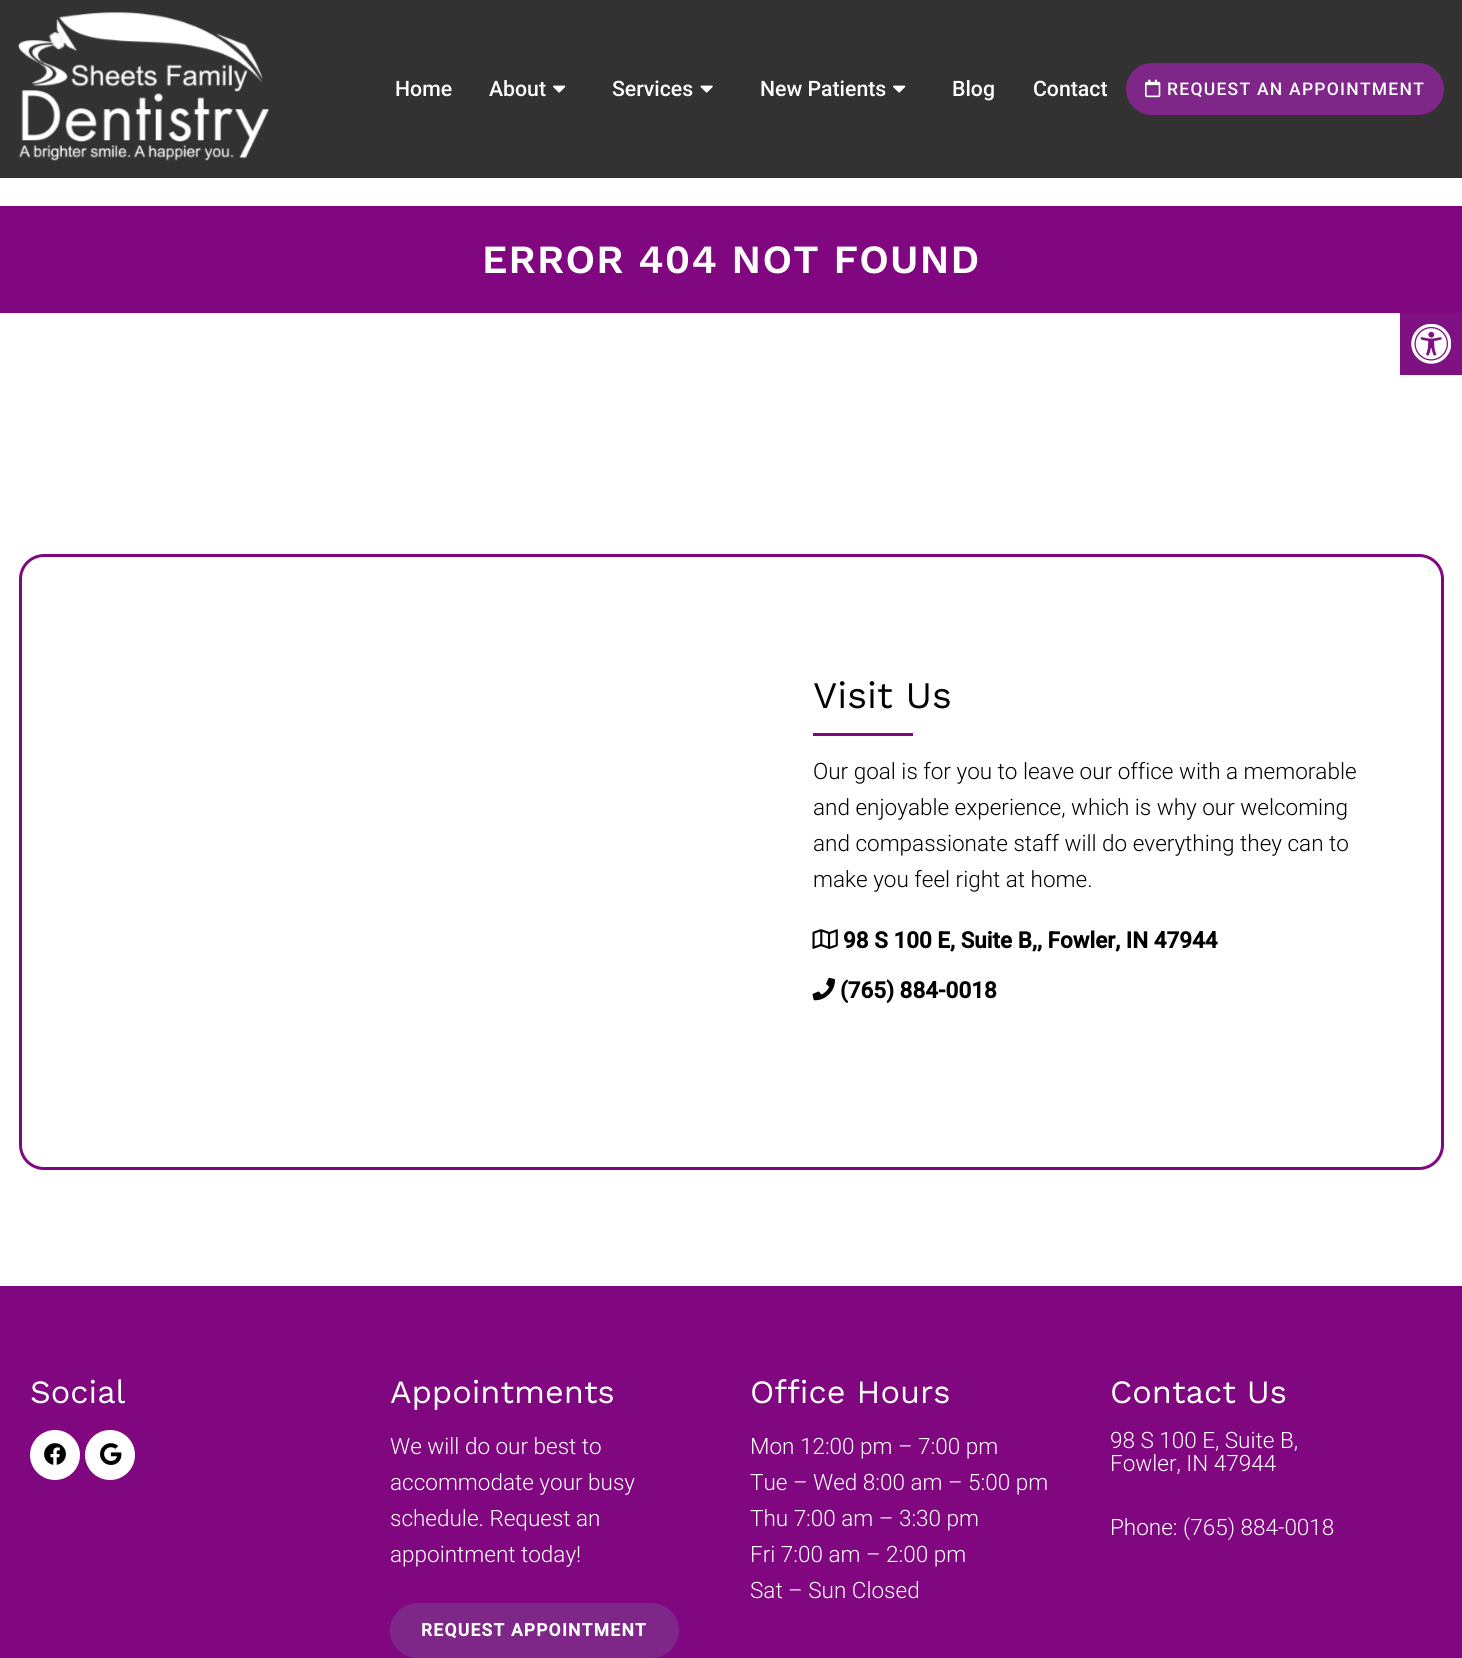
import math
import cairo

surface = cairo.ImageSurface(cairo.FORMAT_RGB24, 1462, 1658)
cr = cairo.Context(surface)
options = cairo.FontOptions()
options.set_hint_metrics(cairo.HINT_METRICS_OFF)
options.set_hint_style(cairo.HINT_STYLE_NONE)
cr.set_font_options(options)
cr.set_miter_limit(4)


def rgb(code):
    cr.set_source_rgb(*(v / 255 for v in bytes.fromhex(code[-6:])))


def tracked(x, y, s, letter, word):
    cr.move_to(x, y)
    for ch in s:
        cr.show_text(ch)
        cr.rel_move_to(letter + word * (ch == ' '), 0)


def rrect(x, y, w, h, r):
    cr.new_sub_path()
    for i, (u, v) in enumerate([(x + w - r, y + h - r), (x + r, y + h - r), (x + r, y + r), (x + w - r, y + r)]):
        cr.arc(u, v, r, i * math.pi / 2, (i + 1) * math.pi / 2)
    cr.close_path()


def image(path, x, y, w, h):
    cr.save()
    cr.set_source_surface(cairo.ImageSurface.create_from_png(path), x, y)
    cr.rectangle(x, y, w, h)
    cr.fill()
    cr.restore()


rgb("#ffffff")
cr.paint()
rgb("#323232")
cr.rectangle(0, 0, 1462, 178)
cr.fill()
image("img/1.png", 18, 12, 251, 149)
image("img/2.png", 553, 85, 13, 8)
image("img/3.png", 700, 85, 13, 8)
image("img/2.png", 893, 85, 13, 8)
rgb("#7f2789")
rrect(1126, 63, 318, 52, 26)
cr.fill()
image("img/4.png", 1145, 79, 16, 19)
rgb("#800780")
cr.rectangle(0, 206, 1462, 107)
cr.fill()
rrect(20.5, 555.5, 1422, 613, 23.5)
cr.set_line_width(3)
cr.stroke()
cr.rectangle(813, 733, 100, 3)
cr.fill()
image("img/5.png", 812, 929, 26, 20)
image("img/6.png", 812, 977, 23, 24)
cr.rectangle(0, 1286, 1462, 372)
cr.fill()
rgb("#ffffff")
cr.arc(55, 1455, 25, 0, 2 * math.pi)
cr.fill()
image("img/7.png", 44, 1443, 22, 22)
cr.arc(110, 1455, 25, 0, 2 * math.pi)
cr.fill()
image("img/8.png", 100, 1443, 22, 22)
rgb("#7f2789")
rrect(390, 1603, 289, 55, 27.5)
cr.fill()
rgb("#801183")
cr.rectangle(1400, 313, 62, 62)
cr.fill()
image("img/9.png", 1411, 324, 40, 40)
cr.select_font_face("Roboto Medium")
cr.set_font_size(21.25)
rgb("#ffffff")
for x, y, s in [
    (395, 96, "Home"),
    (489, 96, "About"),
    (612, 96, "Services"),
    (760, 96, "New Patients"),
    (952, 96, "Blog"),
    (1033, 96, "Contact"),
]:
    cr.move_to(x, y)
    cr.show_text(s)
cr.set_font_size(17.5)
tracked(1167, 95, "REQUEST AN APPOINTMENT", 1.25, 0)
cr.select_font_face("Work Sans SemiBold")
cr.set_font_size(40)
tracked(482, 273, "ERROR 404 NOT FOUND", 1.25, 0)
cr.select_font_face("Work Sans")
cr.set_font_size(37.5)
rgb("#000000")
cr.move_to(813, 708)
cr.show_text("Visit Us")
cr.select_font_face("Roboto Light")
cr.set_font_size(22.5)
for x, y, s in [
    (813, 779, "Our goal is for you to leave our office with a memorable"),
    (813, 815, "and enjoyable experience, which is why our welcoming"),
    (813, 851, "and compassionate staff will do everything they can to"),
    (813, 887, "make you feel right at home."),
]:
    cr.move_to(x, y)
    cr.show_text(s)
cr.select_font_face("Roboto", cairo.FONT_SLANT_NORMAL, cairo.FONT_WEIGHT_BOLD)
cr.move_to(843, 948)
cr.show_text("98 S 100 E, Suite B,, Fowler, IN 47944")
cr.move_to(840, 998)
cr.show_text("(765) 884-0018")
cr.select_font_face("Work Sans")
cr.set_font_size(32.5)
rgb("#ffffff")
cr.move_to(30, 1403)
cr.show_text("Social")
cr.move_to(390, 1403)
cr.show_text("Appointments")
cr.select_font_face("Roboto Light")
cr.set_font_size(22.5)
for x, y, s in [
    (390, 1454, "We will do our best to"),
    (390, 1490, "accommodate your busy"),
    (390, 1526, "schedule. Request an"),
    (390, 1562, "appointment today!"),
]:
    cr.move_to(x, y)
    cr.show_text(s)
cr.select_font_face("Roboto", cairo.FONT_SLANT_NORMAL, cairo.FONT_WEIGHT_BOLD)
cr.set_font_size(17.5)
tracked(421, 1636, "REQUEST APPOINTMENT", 1.25, 0)
cr.select_font_face("Work Sans")
cr.set_font_size(32.5)
cr.move_to(750, 1403)
cr.show_text("Office Hours")
cr.select_font_face("Roboto Light")
cr.set_font_size(22.5)
for x, y, s in [
    (750, 1454, "Mon 12:00 pm – 7:00 pm"),
    (750, 1490, "Tue – Wed 8:00 am – 5:00 pm"),
    (750, 1526, "Thu 7:00 am – 3:30 pm"),
    (750, 1562, "Fri 7:00 am – 2:00 pm"),
    (750, 1598, "Sat – Sun Closed"),
]:
    cr.move_to(x, y)
    cr.show_text(s)
cr.select_font_face("Work Sans")
cr.set_font_size(32.5)
cr.move_to(1110, 1403)
cr.show_text("Contact Us")
cr.select_font_face("Roboto Light")
cr.set_font_size(22.5)
for x, y, s in [
    (1110, 1448, "98 S 100 E, Suite B,"),
    (1110, 1471, "Fowler, IN 47944"),
    (1110, 1535, "Phone: (765) 884-0018"),
]:
    cr.move_to(x, y)
    cr.show_text(s)
surface.write_to_png("page.png")
